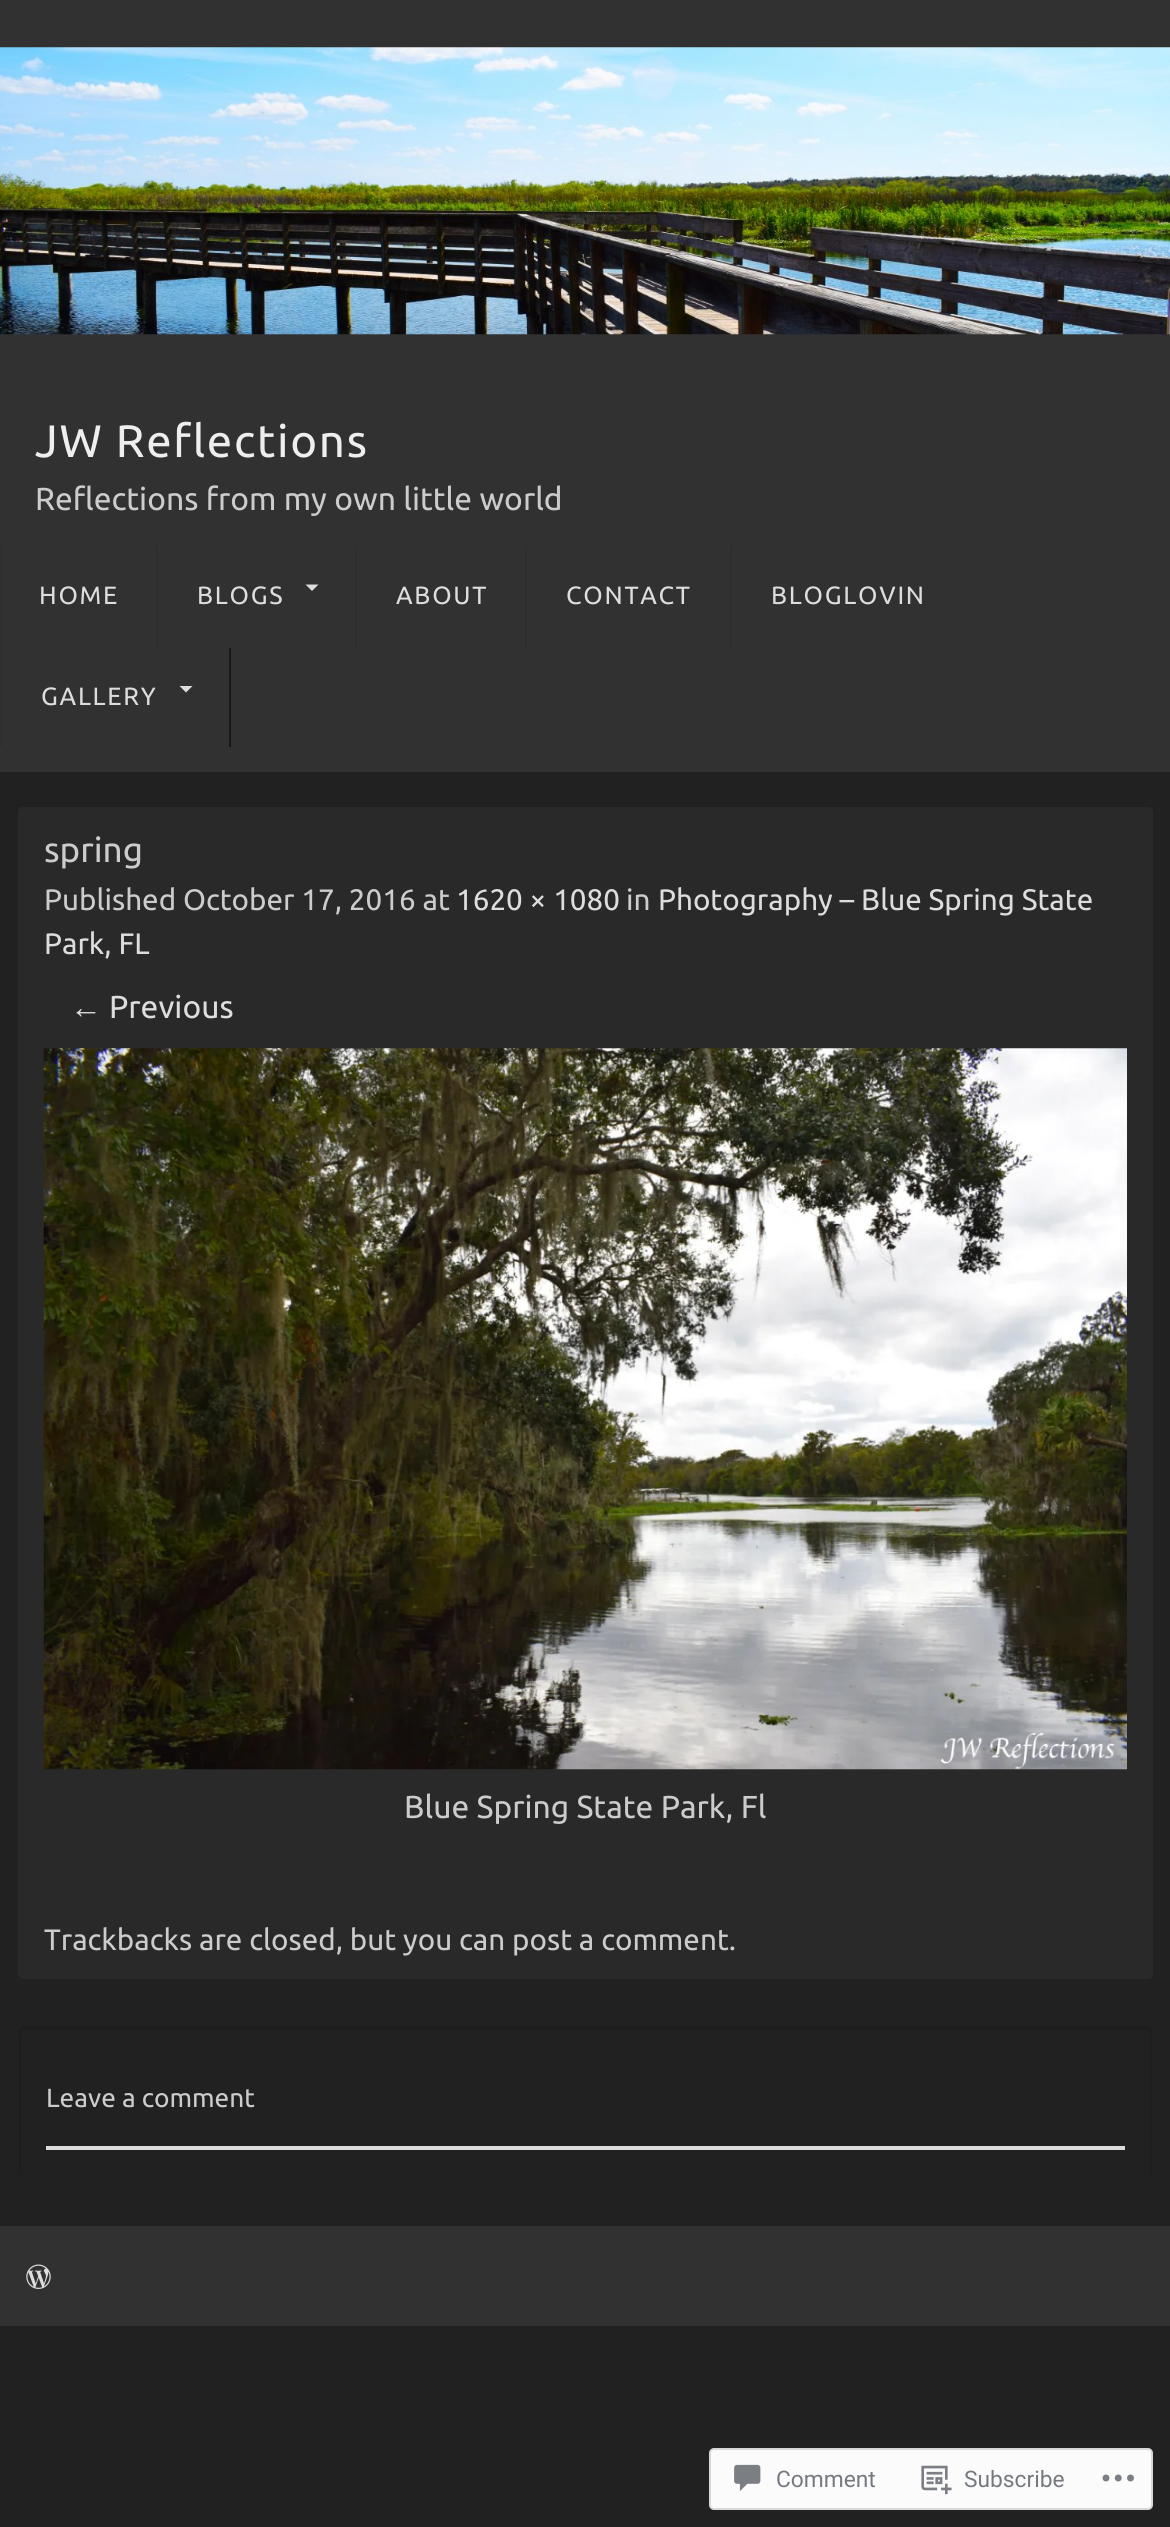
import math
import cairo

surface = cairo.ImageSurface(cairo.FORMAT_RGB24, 1170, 2527)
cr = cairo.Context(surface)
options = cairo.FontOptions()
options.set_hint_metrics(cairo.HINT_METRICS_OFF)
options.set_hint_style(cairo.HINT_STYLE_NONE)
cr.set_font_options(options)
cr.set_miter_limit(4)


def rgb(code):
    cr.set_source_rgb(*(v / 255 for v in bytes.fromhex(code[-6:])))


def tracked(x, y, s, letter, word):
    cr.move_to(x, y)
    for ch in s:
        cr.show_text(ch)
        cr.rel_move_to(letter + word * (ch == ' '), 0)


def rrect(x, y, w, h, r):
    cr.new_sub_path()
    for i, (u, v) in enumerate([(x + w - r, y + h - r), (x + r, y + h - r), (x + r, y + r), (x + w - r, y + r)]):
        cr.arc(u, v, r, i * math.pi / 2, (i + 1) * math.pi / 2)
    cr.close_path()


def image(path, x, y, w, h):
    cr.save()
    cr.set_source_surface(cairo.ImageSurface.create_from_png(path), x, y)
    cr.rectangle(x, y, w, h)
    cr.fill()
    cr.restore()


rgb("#212121")
cr.paint()
rgb("#313131")
cr.rectangle(0, 0, 1170, 772)
cr.fill()
image("img/1.png", 0, 47, 1170, 288)
rgb("#2e2e2e")
cr.rectangle(0, 546, 2, 201)
cr.fill()
cr.rectangle(156, 546, 2, 102)
cr.fill()
rgb("#dddddd")
cr.new_path()
cr.move_to(305.5, 584.5)
cr.line_to(312, 591)
cr.line_to(318.5, 584.5)
cr.close_path()
cr.fill()
for x, y, w, h, color in [
    (355, 546, 2, 102, "#2e2e2e"),
    (525, 546, 2, 102, "#2e2e2e"),
    (730, 546, 2, 102, "#2e2e2e"),
    (230, 648, 1, 99, "#161616"),
    (229, 648, 1, 99, "#191919"),
]:
    rgb(color)
    cr.rectangle(x, y, w, h)
    cr.fill()
rgb("#dddddd")
cr.new_path()
cr.move_to(179.5, 686)
cr.line_to(186, 692.5)
cr.line_to(192.5, 686)
cr.close_path()
cr.fill()
rgb("#292929")
rrect(18, 807, 1135, 1172, 5)
cr.fill()
image("img/2.png", 43, 1048, 1084, 722)
rgb("#1e1e1e")
cr.set_fill_rule(cairo.FILL_RULE_EVEN_ODD)
cr.new_path()
cr.move_to(23, 2026)
cr.curve_to(21, 2026, 19, 2029, 19, 2032)
cr.line_to(19, 2172)
cr.curve_to(19, 2174, 21, 2175, 23, 2175)
cr.line_to(1148, 2175)
cr.curve_to(1150, 2175, 1152, 2174, 1152, 2172)
cr.line_to(1152, 2032)
cr.curve_to(1152, 2029, 1150, 2026, 1148, 2026)
cr.close_path()
cr.move_to(23, 2030)
cr.curve_to(22, 2030, 21, 2032, 21, 2034)
cr.line_to(21, 2174)
cr.line_to(23, 2175)
cr.line_to(1148, 2175)
cr.line_to(1150, 2174)
cr.line_to(1150, 2034)
cr.curve_to(1150, 2032, 1149, 2030, 1148, 2030)
cr.close_path()
cr.fill()
rgb("#dcdcde")
cr.rectangle(46, 2146, 1079, 4)
cr.fill()
rgb("#313131")
cr.rectangle(0, 2226, 1170, 100)
cr.fill()
image("img/3.png", 26, 2264, 25, 25)
rgb("#fbfbfb")
rrect(710, 2449, 442, 60, 4)
cr.fill_preserve()
rgb("#d8d8da")
cr.stroke()
image("img/4.png", 734, 2464, 27, 27)
image("img/5.png", 921, 2465, 31, 30)
image("img/6.png", 1102, 2474, 32, 8)
cr.select_font_face("Ubuntu")
cr.set_font_size(45.5)
rgb("#eeeeee")
tracked(35, 457, "JW Reflections", 1.75, 0)
cr.set_font_size(31.8)
rgb("#cccccc")
cr.move_to(35, 510)
cr.show_text("Reflections from my own little world")
cr.set_font_size(25)
rgb("#dddddd")
for x, y, s in [
    (39, 604, "HOME"),
    (197, 604, "BLOGS"),
    (396, 604, "ABOUT"),
    (566, 604, "CONTACT"),
    (771, 604, "BLOGLOVIN"),
    (41, 705, "GALLERY"),
]:
    tracked(x, y, s, 1.75, 0)
cr.set_font_size(35)
rgb("#cccccc")
cr.move_to(44, 862)
cr.show_text("spring")
cr.set_font_size(29.6)
cr.move_to(44, 910)
cr.show_text("Published October 17, 2016 at")
rgb("#dddddd")
cr.move_to(456, 910)
cr.show_text("1620 × 1080")
rgb("#cccccc")
cr.move_to(626, 910)
cr.show_text("in")
rgb("#dddddd")
cr.move_to(658, 910)
cr.show_text("Photography – Blue Spring State")
cr.move_to(44, 954)
cr.show_text("Park, FL")
cr.select_font_face("Liberation Sans")
cr.set_font_size(31.8)
cr.move_to(70, 1018)
cr.show_text("←")
cr.select_font_face("Ubuntu")
cr.move_to(109, 1018)
cr.show_text("Previous")
rgb("#cccccc")
cr.move_to(404, 1818)
cr.show_text("Blue Spring State Park, Fl")
cr.set_font_size(29.6)
cr.move_to(44, 1950)
cr.show_text("Trackbacks are closed, but you can post a comment.")
cr.set_font_size(26.25)
cr.move_to(46, 2107)
cr.show_text("Leave a comment")
cr.select_font_face("Roboto")
cr.set_font_size(22.75)
rgb("#767a80")
cr.move_to(776, 2487)
cr.show_text("Comment")
cr.move_to(964, 2487)
cr.show_text("Subscribe")
surface.write_to_png("page.png")
